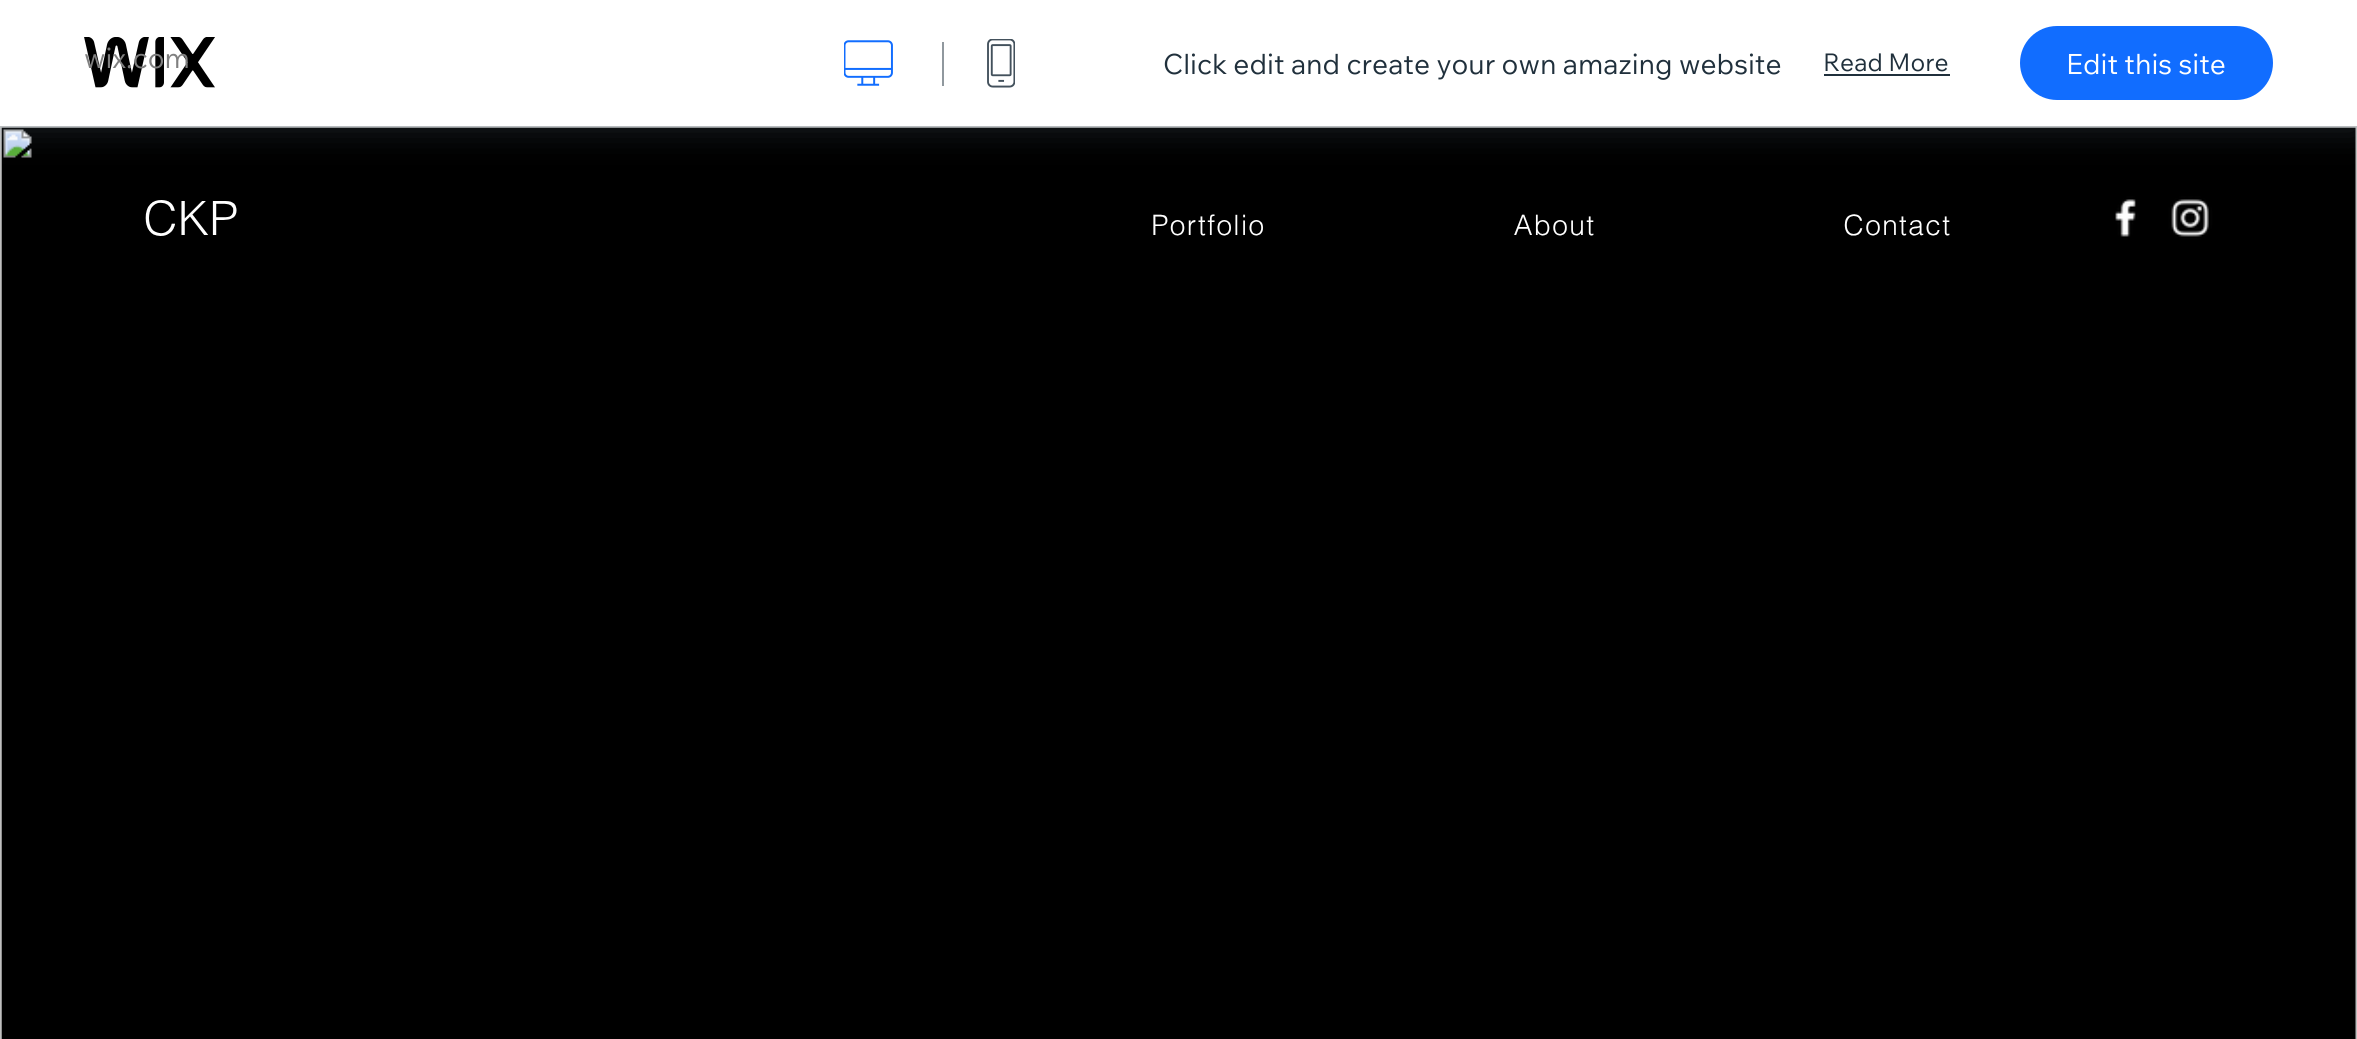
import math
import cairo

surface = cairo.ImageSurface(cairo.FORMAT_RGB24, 2357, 1039)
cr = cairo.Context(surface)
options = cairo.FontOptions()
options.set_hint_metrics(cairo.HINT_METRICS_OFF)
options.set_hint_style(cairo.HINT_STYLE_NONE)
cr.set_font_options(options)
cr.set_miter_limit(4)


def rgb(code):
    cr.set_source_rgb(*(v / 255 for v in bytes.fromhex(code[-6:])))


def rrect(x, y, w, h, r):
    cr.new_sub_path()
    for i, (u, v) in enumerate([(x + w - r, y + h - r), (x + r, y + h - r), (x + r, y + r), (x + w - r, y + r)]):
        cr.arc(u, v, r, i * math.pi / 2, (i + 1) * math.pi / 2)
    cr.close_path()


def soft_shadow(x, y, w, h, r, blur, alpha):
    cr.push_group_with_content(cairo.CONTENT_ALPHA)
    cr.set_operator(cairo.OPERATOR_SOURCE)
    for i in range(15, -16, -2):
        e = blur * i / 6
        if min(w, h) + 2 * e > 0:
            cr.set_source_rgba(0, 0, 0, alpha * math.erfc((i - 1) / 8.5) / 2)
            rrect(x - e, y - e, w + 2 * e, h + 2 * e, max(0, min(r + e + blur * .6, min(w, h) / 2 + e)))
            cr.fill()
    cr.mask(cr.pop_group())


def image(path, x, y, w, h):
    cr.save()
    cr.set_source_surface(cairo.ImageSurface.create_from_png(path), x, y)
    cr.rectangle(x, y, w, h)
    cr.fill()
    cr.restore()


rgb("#ffffff")
cr.paint()
image("img/4.png", 0, 126, 2357, 913)
rgb("#81a2b6")
soft_shadow(0, 4, 2357, 126, 0, 16, 0.2)
rgb("#ffffff")
cr.rectangle(0, 0, 2357, 126)
cr.fill()
image("img/1.png", 84, 37, 131, 51)
image("img/2.png", 844, 40, 49, 46)
rgb("#90989e")
cr.rectangle(942, 42, 2, 44)
cr.fill()
image("img/3.png", 987, 39, 28, 49)
rgb("#20303c")
cr.rectangle(1824, 74, 126, 2)
cr.fill()
rgb("#116dff")
rrect(2020, 26, 253, 74, 37)
cr.fill()
cr.select_font_face("Wix Madefor Text")
cr.set_font_size(28)
rgb("#7f7f7f")
cr.move_to(84, 68)
cr.show_text("wix.com")
rgb("#20303c")
cr.move_to(1163, 74)
cr.show_text("Click edit and create your own amazing website")
cr.set_font_size(24.5)
cr.move_to(1823, 71)
cr.show_text("Read More")
cr.set_font_size(28)
rgb("#ffffff")
cr.move_to(2066, 74)
cr.show_text("Edit this site")
surface.write_to_png("page.png")
